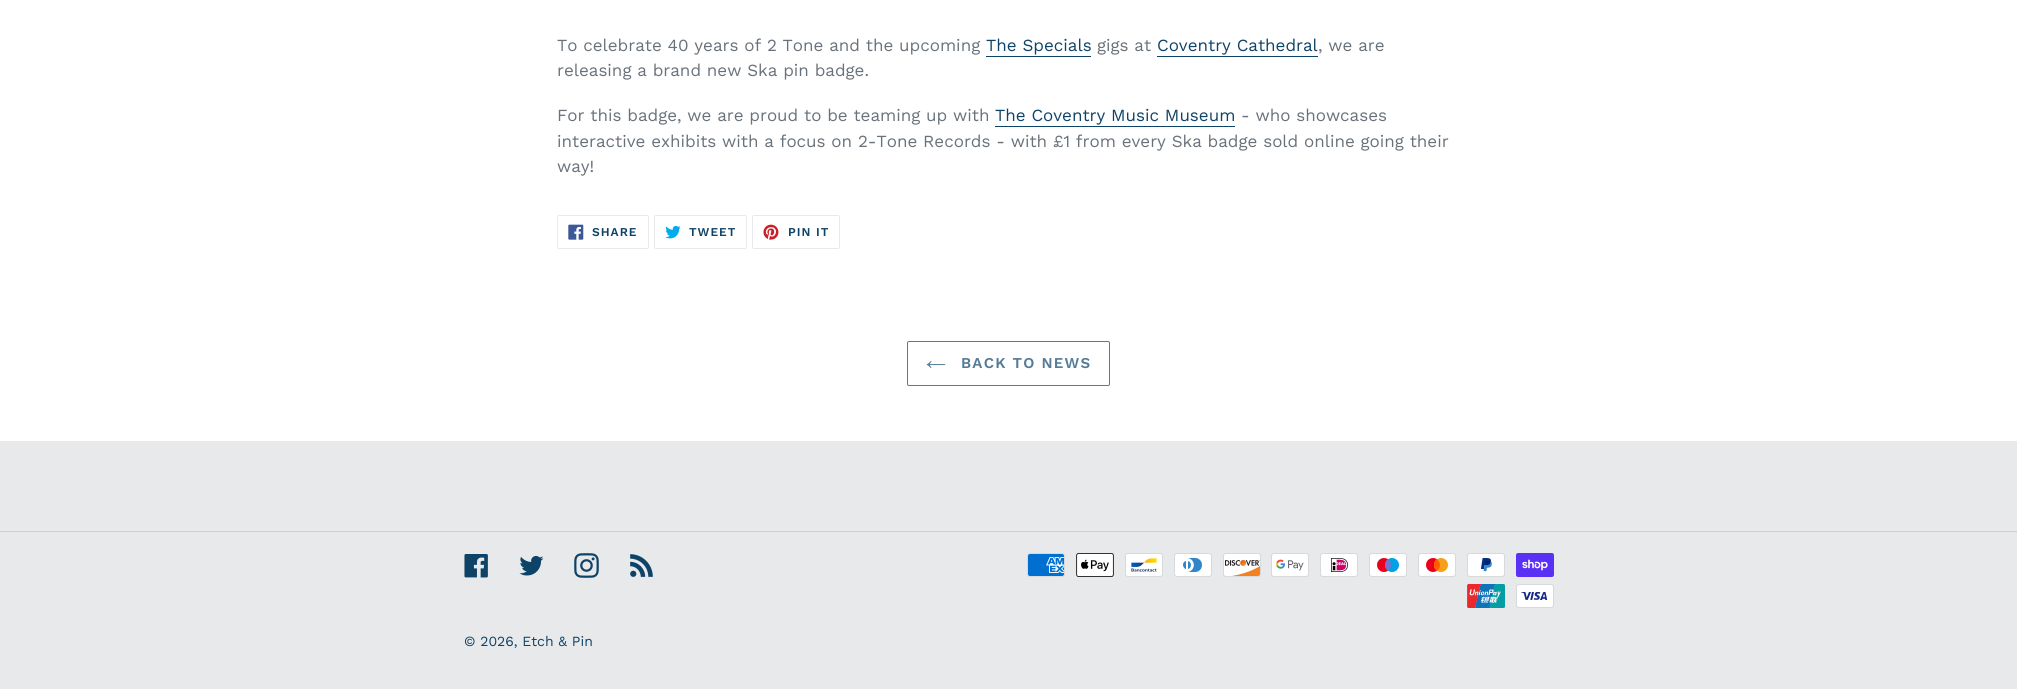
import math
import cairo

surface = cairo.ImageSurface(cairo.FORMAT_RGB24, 2017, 689)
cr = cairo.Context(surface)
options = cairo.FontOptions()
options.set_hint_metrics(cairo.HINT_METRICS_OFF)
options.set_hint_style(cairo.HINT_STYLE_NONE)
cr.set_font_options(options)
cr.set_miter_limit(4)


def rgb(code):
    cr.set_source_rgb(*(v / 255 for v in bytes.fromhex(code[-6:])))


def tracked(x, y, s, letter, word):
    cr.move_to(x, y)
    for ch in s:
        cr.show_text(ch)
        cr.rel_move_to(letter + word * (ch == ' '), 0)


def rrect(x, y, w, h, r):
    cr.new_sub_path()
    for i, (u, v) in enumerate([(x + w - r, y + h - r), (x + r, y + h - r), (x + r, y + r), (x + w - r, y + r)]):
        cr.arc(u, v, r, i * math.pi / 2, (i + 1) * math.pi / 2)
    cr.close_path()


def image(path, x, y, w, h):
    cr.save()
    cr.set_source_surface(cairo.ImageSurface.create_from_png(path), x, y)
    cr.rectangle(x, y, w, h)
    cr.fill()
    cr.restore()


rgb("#ffffff")
cr.paint()
for x, y, w, h, color in [
    (986, 56, 105, 1, "#0e4368"),
    (1157, 56, 161, 1, "#0e4368"),
    (995, 126, 240, 1, "#0e4368"),
]:
    rgb(color)
    cr.rectangle(x, y, w, h)
    cr.fill()
rrect(557.5, 215.5, 91, 33, 1.5)
rgb("#e8e9eb")
cr.set_line_width(1)
cr.stroke()
image("img/1.png", 568, 224, 16, 16)
rrect(654.5, 215.5, 92, 33, 1.5)
cr.stroke()
image("img/2.png", 665, 225, 16, 14)
rrect(752.5, 215.5, 87, 33, 1.5)
cr.stroke()
image("img/3.png", 763, 224, 16, 16)
rrect(907.5, 341.5, 202, 44, 1.5)
rgb("#557b97")
cr.stroke()
image("img/4.png", 926, 361, 20, 8)
rgb("#e8e9eb")
cr.rectangle(0, 441, 2017, 248)
cr.fill()
rgb("#cdcfd3")
cr.rectangle(0, 531, 2017, 1)
cr.fill()
image("img/5.png", 464, 554, 24, 24)
image("img/6.png", 519, 556, 25, 20)
image("img/7.png", 574, 553, 25, 25)
image("img/8.png", 630, 554, 23, 23)
image("img/9.png", 1027, 553, 38, 24)
image("img/10.png", 1076, 553, 38, 24)
image("img/11.png", 1125, 553, 38, 24)
image("img/12.png", 1174, 553, 38, 24)
image("img/13.png", 1223, 553, 38, 24)
image("img/14.png", 1271, 553, 38, 24)
image("img/15.png", 1320, 553, 38, 24)
image("img/16.png", 1369, 553, 38, 24)
image("img/17.png", 1418, 553, 38, 24)
image("img/18.png", 1467, 553, 38, 24)
image("img/19.png", 1516, 553, 38, 24)
image("img/20.png", 1467, 584, 38, 24)
image("img/21.png", 1516, 584, 38, 24)
cr.select_font_face("Work Sans")
cr.set_font_size(17)
rgb("#69727b")
cr.move_to(557, 51)
cr.show_text("To celebrate 40 years of 2 Tone and the upcoming")
rgb("#0e4368")
cr.move_to(986, 51)
cr.show_text("The Specials")
rgb("#69727b")
cr.move_to(1097, 51)
cr.show_text("gigs at")
rgb("#0e4368")
cr.move_to(1157, 51)
cr.show_text("Coventry Cathedral")
rgb("#69727b")
for x, y, s in [
    (1318, 51, ", we are"),
    (557, 76, "releasing a brand new Ska pin badge."),
    (557, 121, "For this badge, we are proud to be teaming up with"),
]:
    cr.move_to(x, y)
    cr.show_text(s)
rgb("#0e4368")
cr.move_to(995, 121)
cr.show_text("The Coventry Music Museum")
rgb("#69727b")
for x, y, s in [
    (1241, 121, "- who showcases"),
    (557, 147, "interactive exhibits with a focus on 2-Tone Records - with £1 from every Ska badge sold online going their"),
    (557, 172, "way!"),
]:
    cr.move_to(x, y)
    cr.show_text(s)
cr.select_font_face("Work Sans SemiBold")
cr.set_font_size(12)
rgb("#0e4368")
for x, y, s in [
    (592, 236, "SHARE"),
    (689, 236, "TWEET"),
    (788, 236, "PIN IT"),
]:
    tracked(x, y, s, 1, 0)
cr.set_font_size(15)
rgb("#557b97")
tracked(961, 368, "BACK TO NEWS", 1.25, 0)
cr.select_font_face("Work Sans")
cr.set_font_size(14)
rgb("#0e4368")
cr.move_to(464, 646)
cr.show_text("© 2026, Etch & Pin")
surface.write_to_png("page.png")
